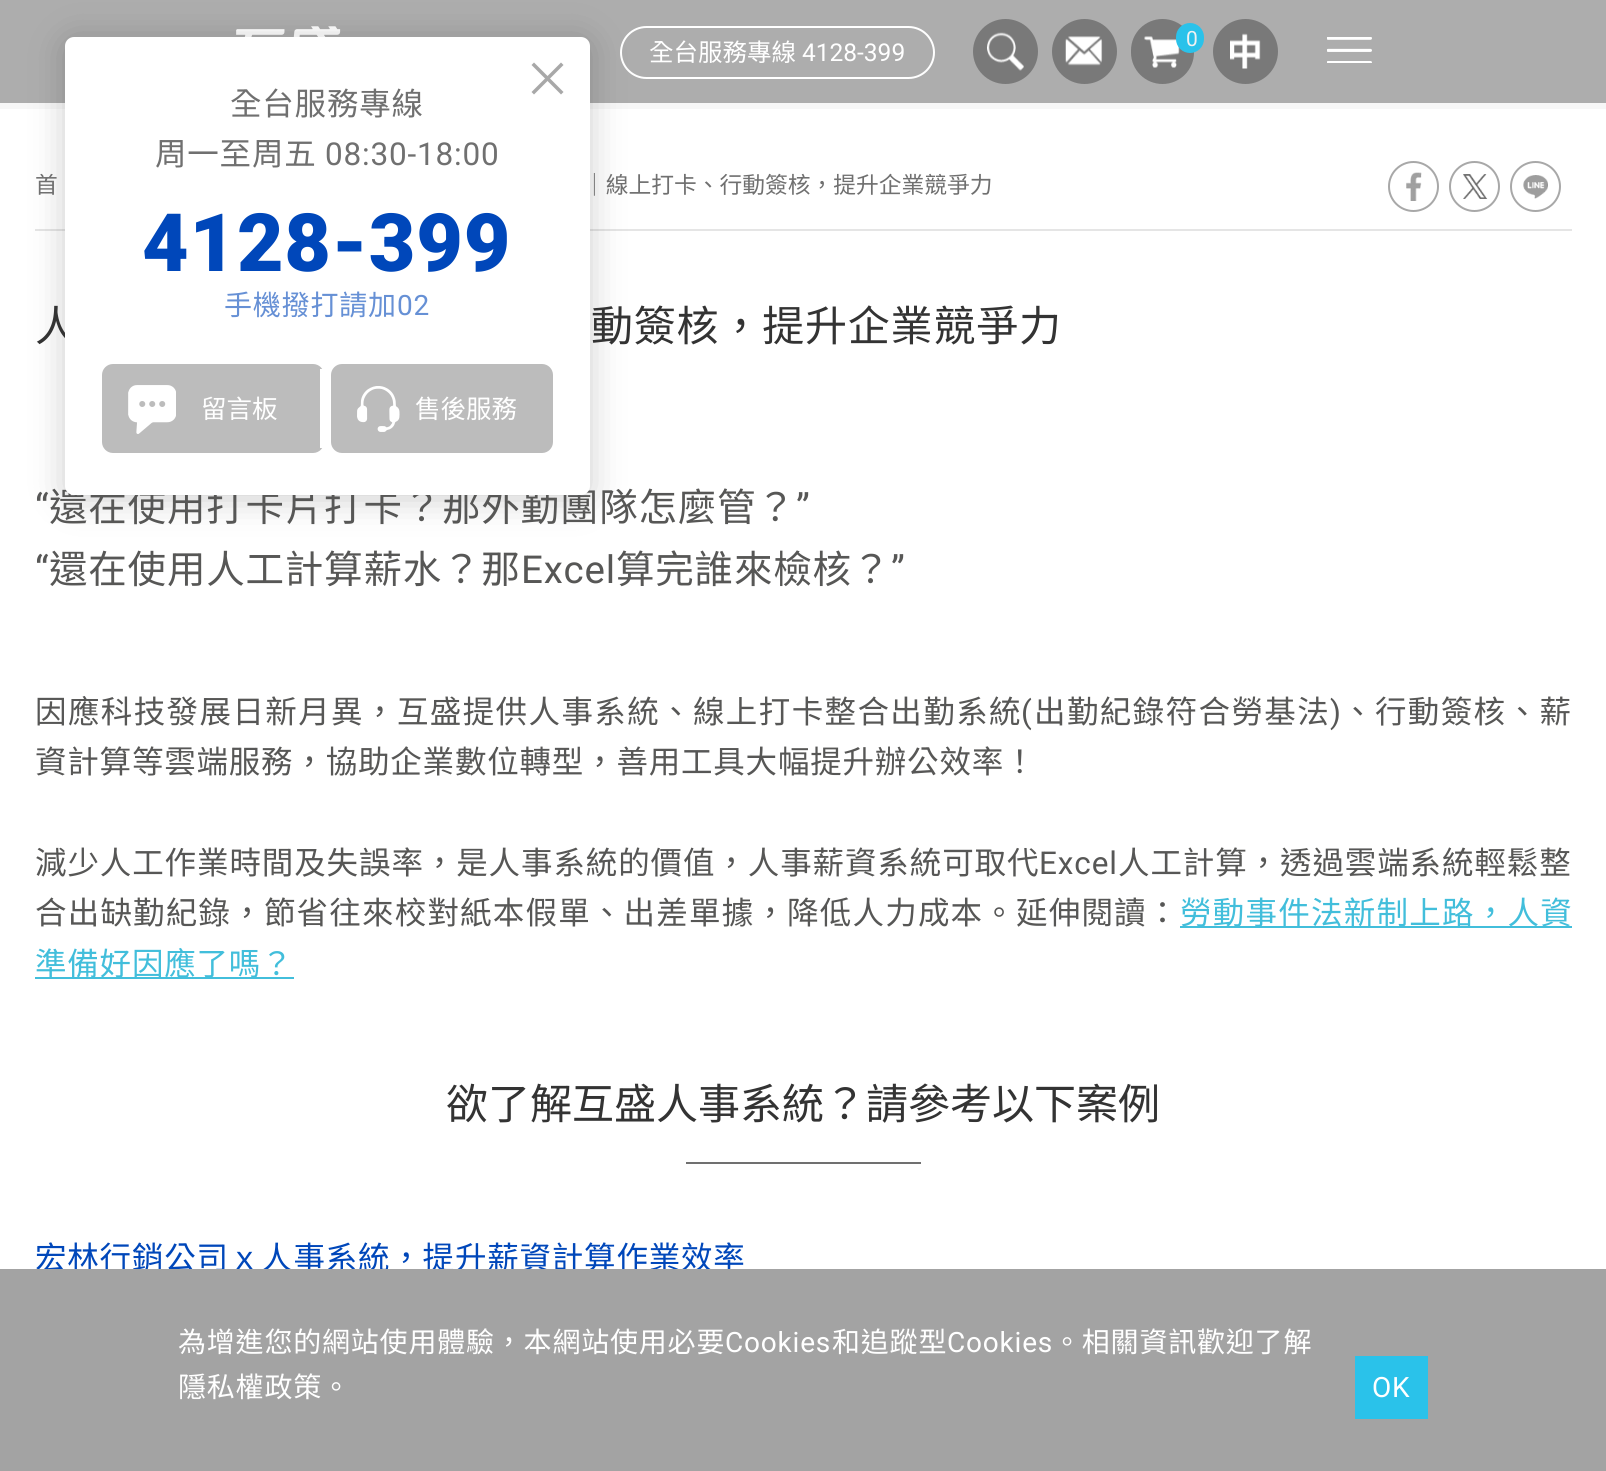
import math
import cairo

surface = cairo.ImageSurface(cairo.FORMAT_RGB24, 1606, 1471)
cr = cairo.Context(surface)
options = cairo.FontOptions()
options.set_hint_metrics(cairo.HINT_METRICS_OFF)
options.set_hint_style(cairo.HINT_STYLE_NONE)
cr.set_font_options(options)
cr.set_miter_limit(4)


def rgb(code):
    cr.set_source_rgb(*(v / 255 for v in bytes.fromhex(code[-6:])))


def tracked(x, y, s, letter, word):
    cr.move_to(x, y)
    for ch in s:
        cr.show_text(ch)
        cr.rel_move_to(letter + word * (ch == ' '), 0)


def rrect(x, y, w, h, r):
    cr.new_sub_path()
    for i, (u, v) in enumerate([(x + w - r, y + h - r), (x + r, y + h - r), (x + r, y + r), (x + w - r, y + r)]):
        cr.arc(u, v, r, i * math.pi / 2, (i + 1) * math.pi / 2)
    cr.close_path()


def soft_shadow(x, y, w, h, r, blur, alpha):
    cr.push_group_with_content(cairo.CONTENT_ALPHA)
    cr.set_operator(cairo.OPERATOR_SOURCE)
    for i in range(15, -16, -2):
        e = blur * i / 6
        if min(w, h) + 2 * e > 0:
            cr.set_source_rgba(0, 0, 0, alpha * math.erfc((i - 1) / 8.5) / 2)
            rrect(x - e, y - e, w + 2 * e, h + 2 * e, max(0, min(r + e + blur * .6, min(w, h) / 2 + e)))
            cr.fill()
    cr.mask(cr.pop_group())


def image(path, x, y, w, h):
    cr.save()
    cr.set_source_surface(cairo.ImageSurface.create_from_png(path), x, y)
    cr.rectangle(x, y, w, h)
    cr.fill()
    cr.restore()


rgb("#f7f7f7")
cr.paint()
rgb("#adadad")
cr.rectangle(0, 0, 1606, 103)
cr.fill()
image("img/1.png", 236, 26, 105, 11)
rgb("#797979")
cr.arc(1005.5, 51.5, 32.5, 0, 2 * math.pi)
cr.fill()
image("img/2.png", 987, 32, 37, 39)
cr.arc(1084.5, 51.5, 32.5, 0, 2 * math.pi)
cr.fill()
image("img/3.png", 1065, 36, 38, 30)
rrect(1131, 19, 63, 65, 31.5)
cr.fill()
image("img/4.png", 1144, 36, 36, 32)
rgb("#2ac2ea")
rrect(1176, 23, 28, 30, 14)
cr.fill()
rgb("#797979")
cr.arc(1245.5, 51.5, 32.5, 0, 2 * math.pi)
cr.fill()
image("img/5.png", 1230, 33, 31, 36)
image("img/6.png", 1327, 37, 45, 26)
rrect(621, 27, 313, 51, 25.5)
rgb("#ffffff")
cr.stroke()
cr.rectangle(0, 109, 1606, 1160)
cr.fill()
rgb("#e5e5e5")
cr.rectangle(35, 229, 1537, 2)
cr.fill()
rgb("#000000")
soft_shadow(65, 40, 525, 459, 9, 17.5, 0.2)
cr.arc(1413.5, 186.5, 24.5, 0, 2 * math.pi)
rgb("#a8a8a8")
cr.stroke()
image("img/9.png", 1406, 172, 16, 29)
cr.arc(1474.5, 186.5, 24.5, 0, 2 * math.pi)
cr.stroke()
image("img/10.png", 1463, 174, 25, 25)
cr.arc(1535.5, 186.5, 24.5, 0, 2 * math.pi)
cr.stroke()
image("img/11.png", 1523, 175, 25, 24)
for x, y, w, h, color in [
    (1180, 926, 392, 2, "#42bedb"),
    (35, 977, 259, 2, "#42bedb"),
    (686, 1162, 235, 2, "#707070"),
]:
    rgb(color)
    cr.rectangle(x, y, w, h)
    cr.fill()
cr.select_font_face("Roboto")
cr.set_font_size(21)
rgb("#f2f2f2")
cr.move_to(1186, 46)
cr.show_text("0")
cr.select_font_face("Noto Sans TC")
cr.set_font_size(24.5)
rgb("#ffffff")
cr.move_to(649, 61)
cr.show_text("全台服務專線")
cr.select_font_face("Roboto")
cr.move_to(802, 61)
cr.show_text("4128-399")
cr.select_font_face("Noto Sans TC")
cr.set_font_size(22.75)
rgb("#707070")
cr.move_to(35, 193)
cr.show_text("首")
cr.move_to(583, 193)
cr.show_text("｜線上打卡、行動簽核，提升企業競爭力")
cr.set_font_size(42)
rgb("#333333")
tracked(35, 341, "人", 0.8, 0)
tracked(591, 341, "動簽核，提升企業競爭力", 0.8, 0)
cr.select_font_face("Roboto")
cr.set_font_size(38.5)
rgb("#575756")
tracked(35, 521, "“", 0.8, 0)
cr.select_font_face("Noto Sans TC")
tracked(49, 521, "還在使用打卡片打卡？那外勤團隊怎麼管？", 0.8, 0)
rgb("#ffffff")
rrect(65, 37, 525, 458, 9)
cr.fill()
rgb("#bcbcbc")
rrect(331, 364, 222, 89, 11)
cr.fill()
cr.set_font_size(25.5)
rgb("#ffffff")
cr.move_to(415, 418)
cr.show_text("售後服務")
image("img/8.png", 357, 386, 43, 46)
rgb("#bcbcbc")
rrect(102, 364, 222, 89, 11)
cr.fill()
rgb("#ffffff")
cr.move_to(201, 418)
cr.show_text("留言板")
image("img/7.png", 128, 385, 48, 49)
rgb("#a8a8a8")
cr.new_path()
cr.move_to(531.5, 92)
cr.line_to(561, 62.5)
cr.line_to(563.5, 65)
cr.line_to(534, 94.5)
cr.close_path()
cr.fill()
cr.new_path()
cr.move_to(534, 62.5)
cr.line_to(563.5, 92)
cr.line_to(561, 94.5)
cr.line_to(531.5, 65)
cr.close_path()
cr.fill()
rgb("#ffffff")
cr.rectangle(320, 369, 4, 79)
cr.fill()
cr.select_font_face("Roboto")
cr.set_font_size(28)
rgb("#6690d5")
tracked(397, 315, "02", 0.8, 0)
cr.select_font_face("Noto Sans TC")
tracked(224, 315, "手機撥打請加", 0.8, 0)
cr.select_font_face("Roboto Black")
cr.set_font_size(80.5)
rgb("#0047ba")
tracked(142, 271, "4128-399", 0.8, 0)
cr.select_font_face("Roboto")
cr.set_font_size(31.5)
rgb("#707070")
tracked(325, 165, "08:30-18:00", 0.8, 0)
cr.select_font_face("Noto Sans TC")
tracked(155, 165, "周一至周五", 0.8, 0)
tracked(230, 115, "全台服務專線", 0.8, 0)
cr.select_font_face("Roboto")
cr.set_font_size(38.5)
rgb("#575756")
tracked(796, 521, "”", 0.8, 0)
tracked(35, 583, "“", 0.8, 0)
cr.select_font_face("Noto Sans TC")
tracked(49, 583, "還在使用人工計算薪水？那", 0.8, 0)
cr.select_font_face("Roboto")
tracked(521, 583, "Excel", 0.8, 0)
cr.select_font_face("Noto Sans TC")
tracked(616, 583, "算完誰來檢核？", 0.8, 0)
cr.select_font_face("Roboto")
tracked(891, 583, "”", 0.8, 0)
cr.select_font_face("Noto Sans TC")
cr.set_font_size(31.5)
tracked(35, 723, "因應科技發展日新月異，互盛提供人事系統、線上打卡整合出勤系統", 1.4, 0)
cr.select_font_face("Roboto")
tracked(1021, 723, "(", 1.4, 0)
cr.select_font_face("Noto Sans TC")
tracked(1034, 723, "出勤紀錄符合勞基法", 1.4, 0)
cr.select_font_face("Roboto")
tracked(1330, 723, ")", 1.4, 0)
cr.select_font_face("Noto Sans TC")
tracked(1342, 723, "、行動簽核、薪", 1.4, 0)
tracked(35, 773, "資計算等雲端服務，協助企業數位轉型，善用工具大幅提升辦公效率！", 0.8, 0)
tracked(35, 874, "減少人工作業時間及失誤率，是人事系統的價值，人事薪資系統可取代", 0.9, 0)
cr.select_font_face("Roboto")
tracked(1039, 874, "Excel", 0.9, 0)
cr.select_font_face("Noto Sans TC")
tracked(1118, 874, "人工計算，透過雲端系統輕鬆整", 0.9, 0)
tracked(35, 924, "合出缺勤紀錄，節省往來校對紙本假單、出差單據，降低人力成本。延伸閱讀：", 1.2, 0)
rgb("#42bedb")
tracked(1180, 924, "勞動事件法新制上路，人資", 1.25, 0)
tracked(35, 975, "準備好因應了嗎？", 0.8, 0)
cr.set_font_size(42)
rgb("#333333")
cr.move_to(446, 1119)
cr.show_text("欲了解互盛人事系統？請參考以下案例")
cr.set_font_size(31.5)
rgb("#0047ba")
tracked(35, 1269, "宏林行銷公司ｘ人事系統，提升薪資計算作業效率", 0.8, 0)
rgb("#a3a3a3")
cr.rectangle(0, 1269, 1606, 202)
cr.fill()
cr.set_font_size(28)
rgb("#ffffff")
tracked(178, 1352, "為增進您的網站使用體驗，本網站使用必要", 0.8, 0)
cr.select_font_face("Roboto")
tracked(725, 1352, "Cookies", 0.8, 0)
cr.select_font_face("Noto Sans TC")
tracked(832, 1352, "和追蹤型", 0.8, 0)
cr.select_font_face("Roboto")
tracked(947, 1352, "Cookies", 0.8, 0)
cr.select_font_face("Noto Sans TC")
tracked(1053, 1352, "。相關資訊歡迎了解", 0.8, 0)
tracked(178, 1397, "隱私權政策。", 0.8, 0)
rgb("#2ac2ea")
cr.rectangle(1355, 1356, 73, 63)
cr.fill()
cr.select_font_face("Roboto")
rgb("#ffffff")
tracked(1372, 1397, "OK", 0.8, 0)
surface.write_to_png("page.png")
